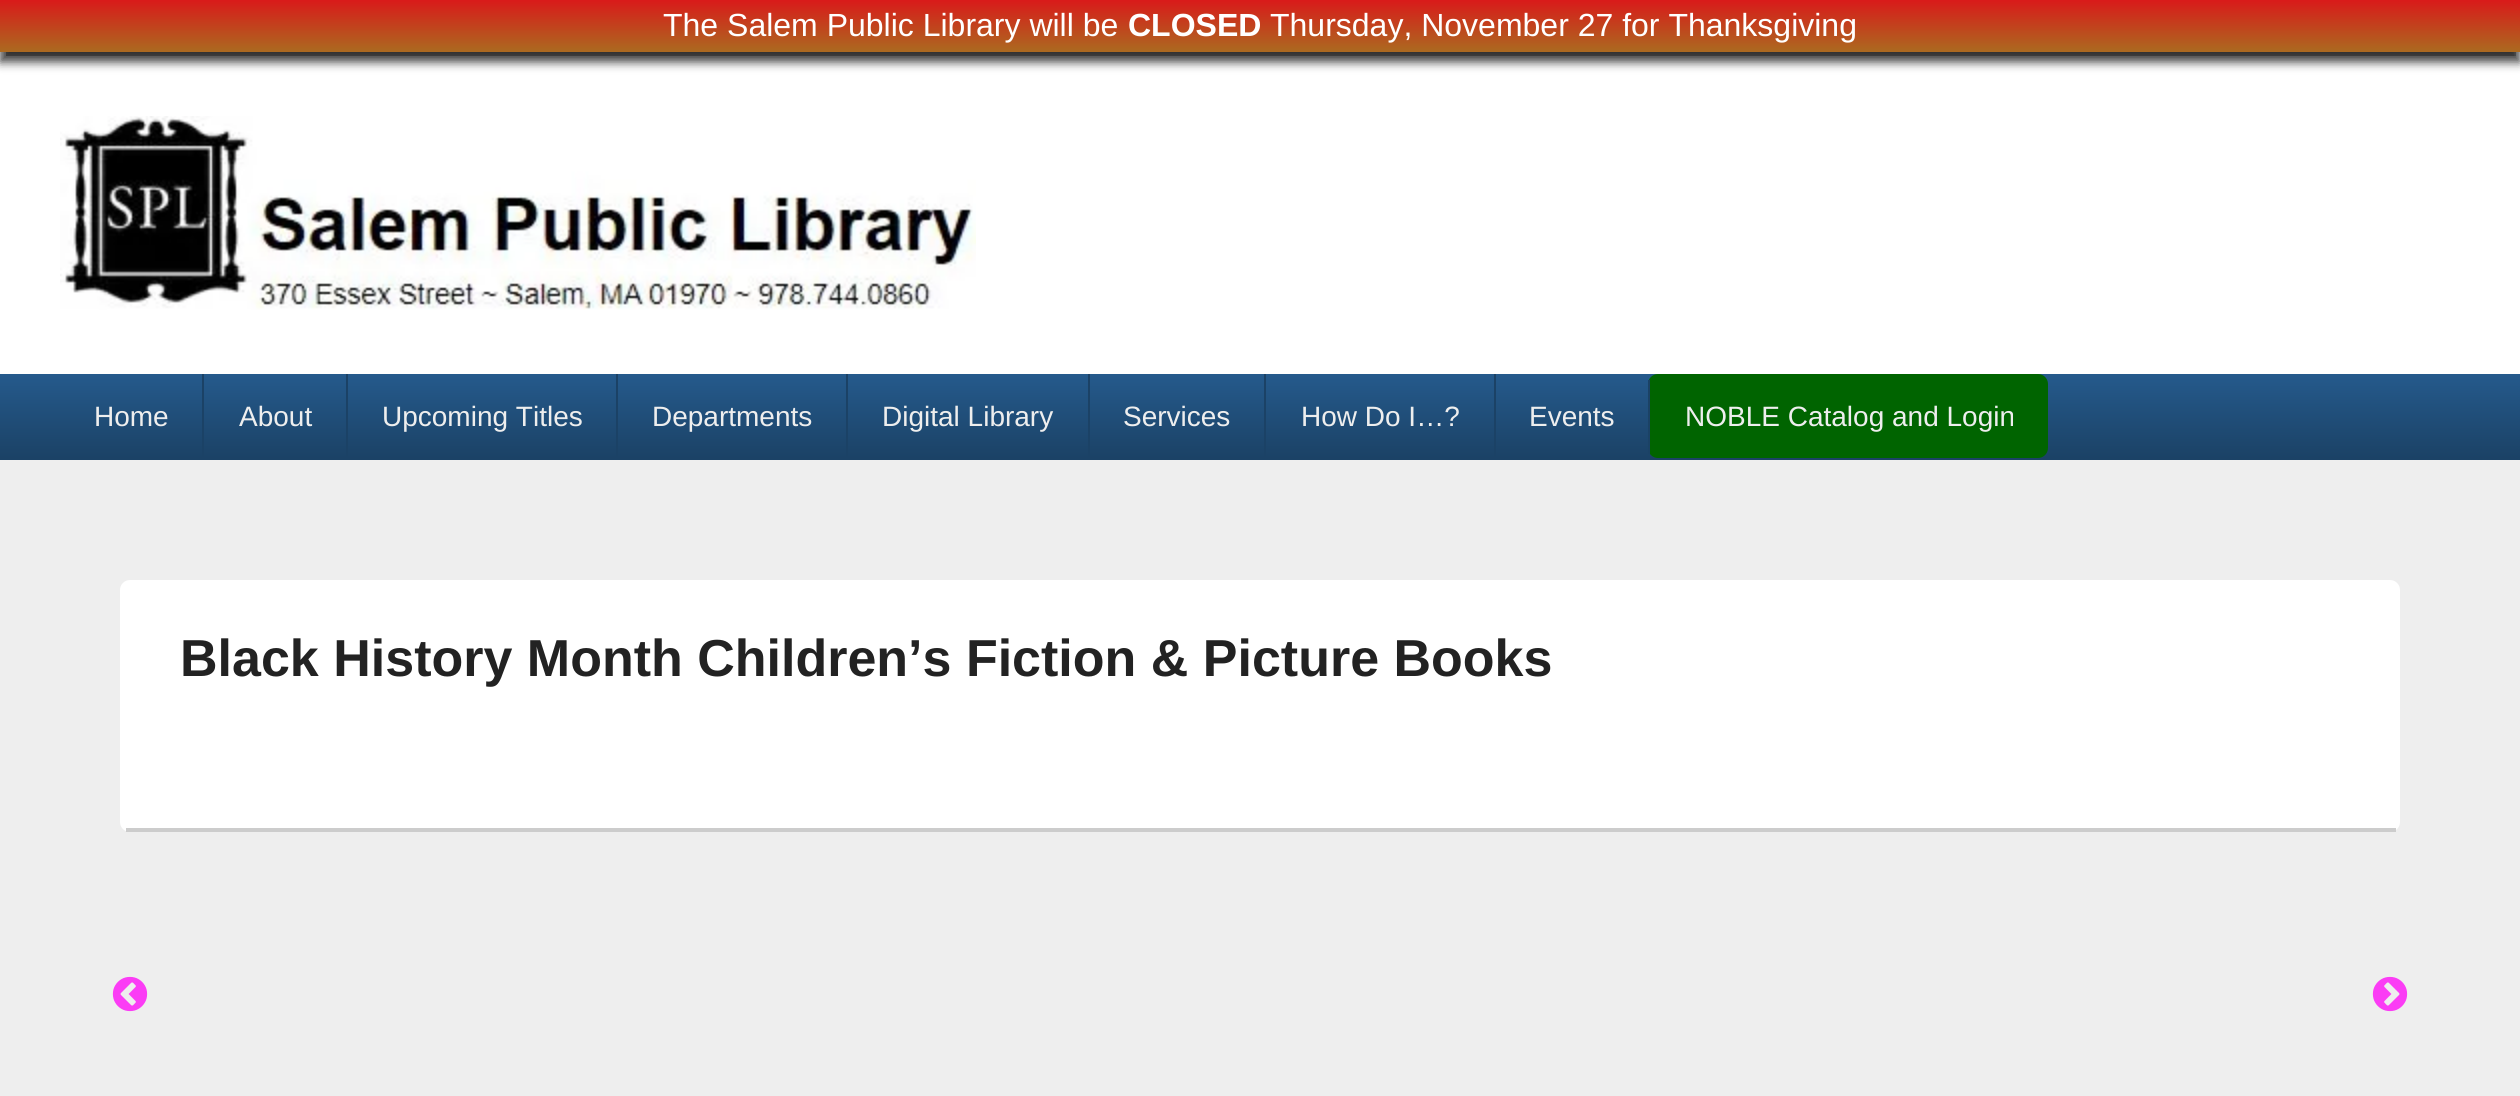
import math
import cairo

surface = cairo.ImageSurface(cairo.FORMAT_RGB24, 2520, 1096)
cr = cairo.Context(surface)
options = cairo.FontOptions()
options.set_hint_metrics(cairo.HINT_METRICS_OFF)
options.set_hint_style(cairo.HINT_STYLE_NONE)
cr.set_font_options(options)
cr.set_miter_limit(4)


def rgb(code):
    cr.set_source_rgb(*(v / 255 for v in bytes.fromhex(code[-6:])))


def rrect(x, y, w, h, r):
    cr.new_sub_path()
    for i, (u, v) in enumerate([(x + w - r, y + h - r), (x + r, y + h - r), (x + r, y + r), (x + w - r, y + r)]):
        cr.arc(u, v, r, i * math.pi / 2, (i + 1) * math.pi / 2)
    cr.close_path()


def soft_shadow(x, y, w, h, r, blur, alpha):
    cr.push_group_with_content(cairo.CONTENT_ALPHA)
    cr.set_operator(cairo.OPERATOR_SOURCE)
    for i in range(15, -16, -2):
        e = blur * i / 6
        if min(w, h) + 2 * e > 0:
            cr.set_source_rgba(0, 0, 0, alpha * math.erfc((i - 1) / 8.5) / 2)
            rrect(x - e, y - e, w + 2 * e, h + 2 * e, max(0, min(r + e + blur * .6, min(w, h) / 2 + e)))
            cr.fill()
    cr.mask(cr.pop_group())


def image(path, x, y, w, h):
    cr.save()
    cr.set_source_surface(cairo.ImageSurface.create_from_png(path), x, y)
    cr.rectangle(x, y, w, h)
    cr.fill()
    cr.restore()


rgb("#ffffff")
cr.paint()
rgb("#bbbbbb")
cr.rectangle(6, 52, 2510, 4)
cr.fill()
rgb("#000000")
soft_shadow(0, 10, 2520, 52, 0, 5, 0.75)
gradient = cairo.LinearGradient(1260, 0, 1260, 52)
gradient.add_color_stop_rgba(0, 0.851, 0.102, 0.102, 1)
gradient.add_color_stop_rgba(1, 0.671, 0.416, 0.125, 1)
cr.set_source(gradient)
cr.rectangle(0, 0, 2520, 52)
cr.fill()
image("img/1.png", 60, 116, 916, 194)
gradient = cairo.LinearGradient(1260, 374, 1260, 458)
gradient.add_color_stop_rgba(0, 0.145, 0.353, 0.549, 1)
gradient.add_color_stop_rgba(1, 0.106, 0.259, 0.4, 1)
cr.set_source(gradient)
cr.rectangle(0, 374, 2520, 84)
cr.fill()
for x, y, w, h, color in [
    (0, 458, 2520, 2, "#1b4266"),
    (202, 374, 2, 84, "#1b4266"),
    (346, 374, 2, 84, "#1b4266"),
    (616, 374, 2, 84, "#1b4266"),
    (846, 374, 2, 84, "#1b4266"),
    (1088, 374, 2, 84, "#1b4266"),
    (1264, 374, 2, 84, "#1b4266"),
    (1494, 374, 2, 84, "#1b4266"),
]:
    rgb(color)
    cr.rectangle(x, y, w, h)
    cr.fill()
rgb("#006400")
rrect(1648, 374, 400, 84, 10)
cr.fill()
rgb("#1b4266")
cr.rectangle(1648, 380, 2, 74)
cr.fill()
rgb("#eeeeee")
cr.rectangle(0, 460, 2520, 636)
cr.fill()
rgb("#ffffff")
rrect(120, 580, 2280, 252, 10)
cr.fill()
rgb("#cccccc")
cr.rectangle(126, 828, 2270, 4)
cr.fill()
image("img/2.png", 112, 976, 36, 36)
image("img/3.png", 2372, 976, 36, 36)
cr.select_font_face("Liberation Sans")
cr.set_font_size(32)
rgb("#ffffff")
cr.move_to(663, 36)
cr.show_text("The Salem Public Library will be")
cr.select_font_face("Liberation Sans", cairo.FONT_SLANT_NORMAL, cairo.FONT_WEIGHT_BOLD)
cr.move_to(1128, 36)
cr.show_text("CLOSED")
cr.select_font_face("Liberation Sans")
cr.move_to(1270, 36)
cr.show_text("Thursday, November 27 for Thanksgiving")
cr.set_font_size(28)
rgb("#eeeeee")
for x, y, s in [
    (94, 426, "Home"),
    (239, 426, "About"),
    (382, 426, "Upcoming Titles"),
    (652, 426, "Departments"),
    (882, 426, "Digital Library"),
    (1123, 426, "Services"),
    (1301, 426, "How Do I…?"),
    (1529, 426, "Events"),
    (1685, 426, "NOBLE Catalog and Login"),
]:
    cr.move_to(x, y)
    cr.show_text(s)
cr.select_font_face("Liberation Sans", cairo.FONT_SLANT_NORMAL, cairo.FONT_WEIGHT_BOLD)
cr.set_font_size(52)
rgb("#222222")
cr.move_to(180, 676)
cr.show_text("Black History Month Children’s Fiction & Picture Books")
surface.write_to_png("page.png")
